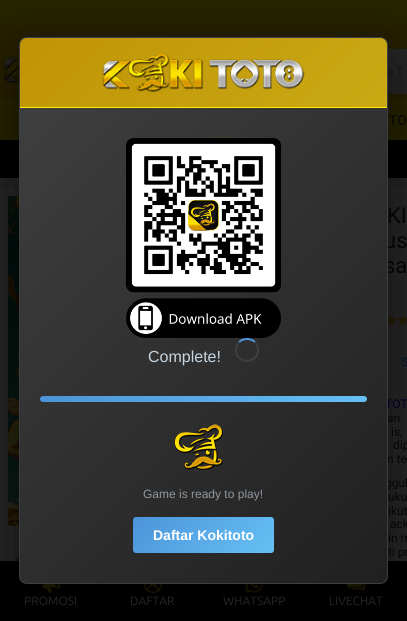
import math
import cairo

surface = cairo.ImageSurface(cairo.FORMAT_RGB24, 407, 621)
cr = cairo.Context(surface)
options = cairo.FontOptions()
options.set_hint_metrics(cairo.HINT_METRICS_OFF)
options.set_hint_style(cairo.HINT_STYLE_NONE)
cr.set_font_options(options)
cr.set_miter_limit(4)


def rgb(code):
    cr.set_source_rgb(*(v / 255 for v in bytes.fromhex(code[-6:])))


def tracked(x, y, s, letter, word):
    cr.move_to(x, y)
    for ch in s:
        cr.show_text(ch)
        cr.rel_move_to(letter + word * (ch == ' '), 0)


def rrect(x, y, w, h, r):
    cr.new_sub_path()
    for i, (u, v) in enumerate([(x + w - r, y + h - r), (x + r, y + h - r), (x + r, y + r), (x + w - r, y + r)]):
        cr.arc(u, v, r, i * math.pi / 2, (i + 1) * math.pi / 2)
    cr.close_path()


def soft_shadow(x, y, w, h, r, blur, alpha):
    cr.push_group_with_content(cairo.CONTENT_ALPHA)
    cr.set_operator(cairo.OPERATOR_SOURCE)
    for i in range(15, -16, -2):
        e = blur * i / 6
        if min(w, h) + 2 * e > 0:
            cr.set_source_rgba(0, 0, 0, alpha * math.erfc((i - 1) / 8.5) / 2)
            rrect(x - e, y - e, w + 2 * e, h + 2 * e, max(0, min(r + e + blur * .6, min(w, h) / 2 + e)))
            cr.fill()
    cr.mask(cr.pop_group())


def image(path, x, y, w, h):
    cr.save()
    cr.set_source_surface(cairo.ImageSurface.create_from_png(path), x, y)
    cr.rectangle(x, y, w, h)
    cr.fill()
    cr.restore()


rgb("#000000")
cr.paint()
rgb("#262300")
cr.rectangle(0, 0, 407, 25)
cr.fill()
rgb("#261f00")
cr.rectangle(0, 25, 407, 75)
cr.fill()
image("img/1.png", 4, 56, 15, 27)
for x, y, w, h, color in [
    (388, 49, 19, 45, "#262626"),
    (0, 100, 407, 40, "#262300"),
    (0, 178, 407, 10, "#242425"),
    (0, 188, 407, 373, "#262626"),
]:
    rgb(color)
    cr.rectangle(x, y, w, h)
    cr.fill()
image("img/5.png", 8, 196, 11, 330)
image("img/6.png", 15, 555, 4, 6)
image("img/7.png", 388, 314, 9, 12)
image("img/8.png", 397, 314, 10, 12)
image("img/9.png", 41, 584, 20, 10)
image("img/10.png", 143, 584, 20, 10)
image("img/11.png", 245, 584, 19, 9)
image("img/12.png", 346, 584, 20, 8)
rgb("#000000")
soft_shadow(19, 57, 369, 547, 8, 30, 0.5)
cr.select_font_face("Roboto")
cr.set_font_size(12)
rgb("#131313")
cr.move_to(387, 75)
cr.show_text("a T")
cr.set_font_size(14)
rgb("#050505")
cr.move_to(389, 125)
cr.show_text("TO")
cr.set_font_size(22)
for x, y, s in [
    (387, 223, "KI"),
    (384, 248, "us"),
    (384, 273, "sa"),
]:
    cr.move_to(x, y)
    cr.show_text(s)
cr.set_font_size(12)
rgb("#031026")
cr.move_to(401, 366)
cr.show_text("S")
rgb("#000024")
cr.move_to(385, 408)
cr.show_text("TOT")
rgb("#050505")
tracked(387, 422, "an", 0, 2)
cr.move_to(391, 436)
cr.show_text("is,")
tracked(393, 449, "dip", 0, 1)
cr.move_to(387, 463)
cr.show_text("n te")
cr.move_to(385, 487)
cr.show_text("ggul")
cr.save()
rrect(19, 37, 369, 547, 8)
cr.clip()
gradient = cairo.LinearGradient(-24, 83, 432, 539)
gradient.add_color_stop_rgba(0, 0.255, 0.255, 0.255, 1)
gradient.add_color_stop_rgba(1, 0.125, 0.125, 0.125, 1)
cr.set_source(gradient)
cr.rectangle(20, 38, 367, 545)
cr.fill()
cr.restore()
for x, y, s in [
    (388, 501, "uku"),
    (388, 515, "ikut"),
    (390, 528, "ack"),
    (388, 542, "in m"),
    (388, 556, "ti pr"),
]:
    cr.move_to(x, y)
    cr.show_text(s)
rrect(19.5, 37.5, 368, 546, 7.5)
rgb("#3d4043")
cr.set_line_width(1)
cr.stroke()
gradient = cairo.LinearGradient(159, 491, 248, 579)
gradient.add_color_stop_rgba(0, 0.298, 0.58, 0.851, 1)
gradient.add_color_stop_rgba(1, 0.4, 0.753, 0.957, 1)
cr.set_source(gradient)
rrect(133, 517, 141, 36, 3)
cr.fill()
cr.select_font_face("Liberation Sans", cairo.FONT_SLANT_NORMAL, cairo.FONT_WEIGHT_BOLD)
cr.set_font_size(14)
rgb("#ffffff")
cr.move_to(153, 540)
cr.show_text("Daftar Kokitoto")
gradient = cairo.LinearGradient(95, -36, 313, 182)
gradient.add_color_stop_rgba(0, 0.753, 0.58, 0.02, 1)
gradient.add_color_stop_rgba(1, 0.792, 0.663, 0.082, 1)
cr.set_source(gradient)
cr.new_path()
cr.move_to(27, 38)
cr.line_to(380, 38)
cr.curve_to(384, 38, 387, 41, 387, 45)
cr.line_to(387, 107)
cr.line_to(20, 107)
cr.line_to(20, 45)
cr.curve_to(20, 41, 23, 38, 27, 38)
cr.close_path()
cr.fill()
image("img/2.png", 102, 52, 203, 41)
rgb("#ffee00")
cr.rectangle(20, 107, 367, 1)
cr.fill()
gradient = cairo.LinearGradient(40, 399, 367, 399)
gradient.add_color_stop_rgba(0, 0.298, 0.58, 0.851, 1)
gradient.add_color_stop_rgba(1, 0.4, 0.753, 0.957, 1)
cr.set_source(gradient)
rrect(40, 396, 327, 6, 3)
cr.fill()
cr.select_font_face("Liberation Sans")
cr.set_font_size(12)
rgb("#8f98a0")
cr.move_to(143, 498)
cr.show_text("Game is ready to play!")
image("img/4.png", 174, 424, 50, 46)
cr.new_path()
cr.move_to(239, 342)
cr.curve_to(243.5, 338, 250.5, 338, 255, 342)
rgb("#4c94d9")
cr.set_line_width(2)
cr.stroke()
cr.new_path()
cr.move_to(255, 342)
cr.curve_to(257.5, 345, 258.5, 348.5, 258, 352)
cr.curve_to(255, 365, 236, 363, 236, 350)
cr.curve_to(236, 347, 237, 344.5, 239, 342)
rgb("#3d4043")
cr.stroke()
cr.set_font_size(16)
rgb("#c7d5e0")
cr.move_to(148, 362)
cr.show_text("Complete!")
image("img/3.png", 126, 136, 155, 202)
cr.select_font_face("Ubuntu")
cr.set_font_size(12)
rgb("#262626")
for x, y, s in [
    (24, 605, "PROMOSI"),
    (130, 605, "DAFTAR"),
    (223, 605, "WHATSAPP"),
    (329, 605, "LIVECHAT"),
]:
    cr.move_to(x, y)
    cr.show_text(s)
surface.write_to_png("page.png")
